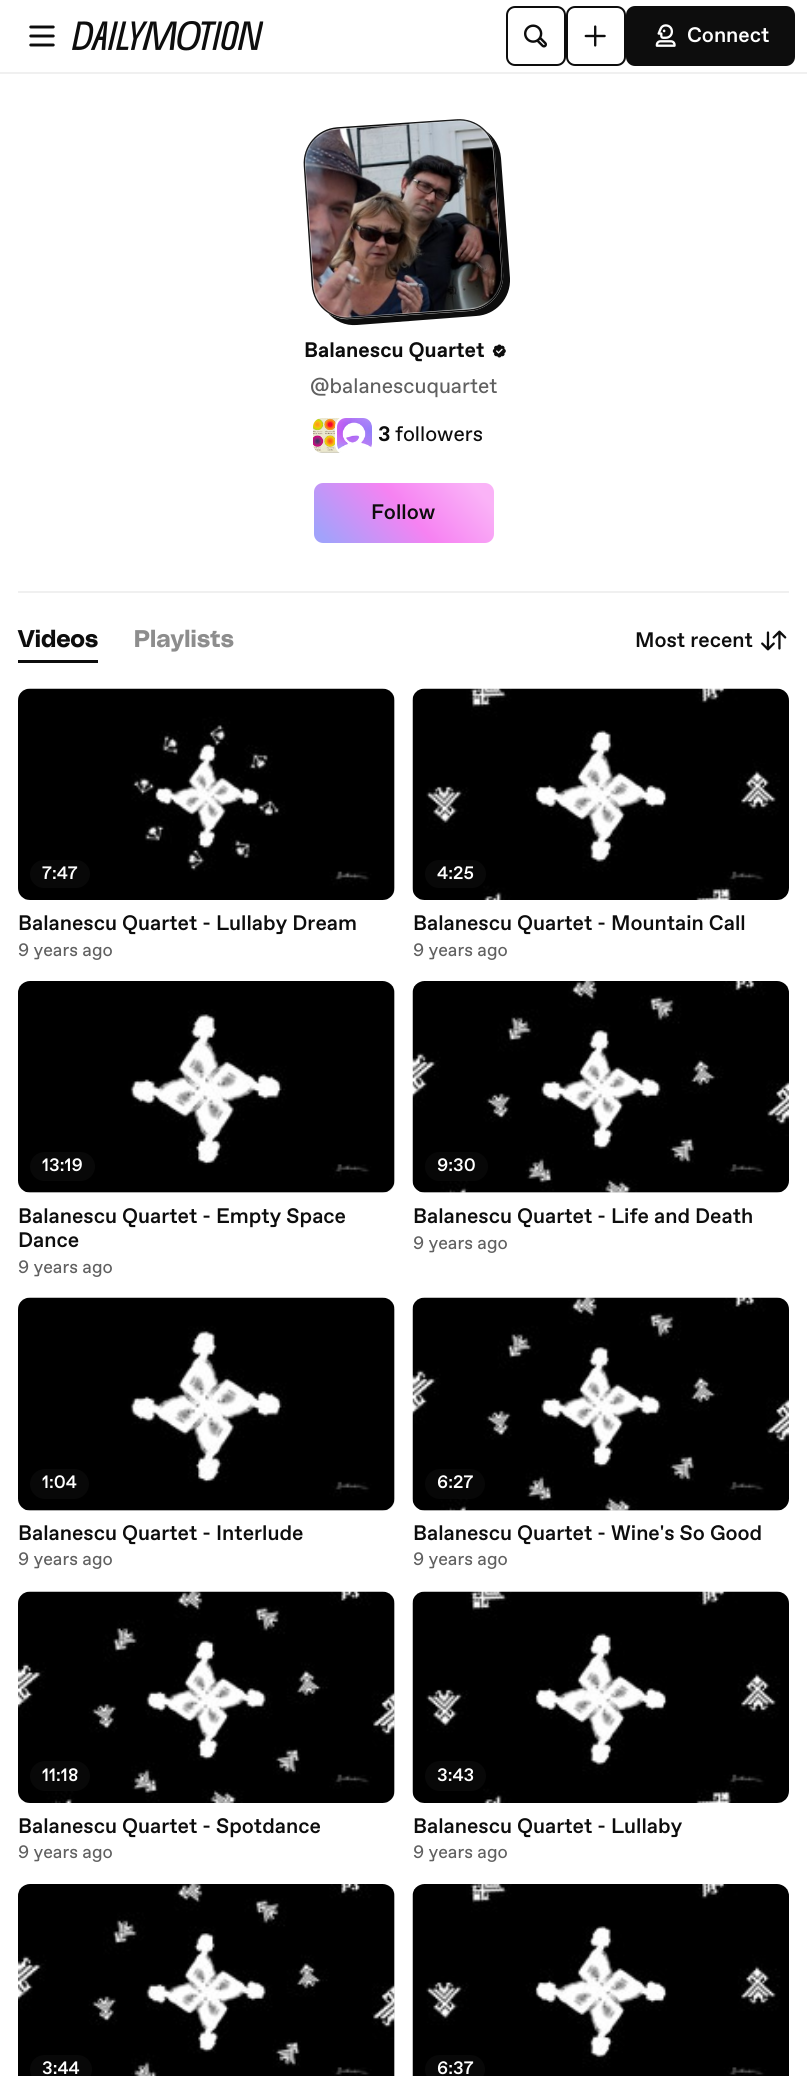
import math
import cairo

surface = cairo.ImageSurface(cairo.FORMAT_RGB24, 807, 2076)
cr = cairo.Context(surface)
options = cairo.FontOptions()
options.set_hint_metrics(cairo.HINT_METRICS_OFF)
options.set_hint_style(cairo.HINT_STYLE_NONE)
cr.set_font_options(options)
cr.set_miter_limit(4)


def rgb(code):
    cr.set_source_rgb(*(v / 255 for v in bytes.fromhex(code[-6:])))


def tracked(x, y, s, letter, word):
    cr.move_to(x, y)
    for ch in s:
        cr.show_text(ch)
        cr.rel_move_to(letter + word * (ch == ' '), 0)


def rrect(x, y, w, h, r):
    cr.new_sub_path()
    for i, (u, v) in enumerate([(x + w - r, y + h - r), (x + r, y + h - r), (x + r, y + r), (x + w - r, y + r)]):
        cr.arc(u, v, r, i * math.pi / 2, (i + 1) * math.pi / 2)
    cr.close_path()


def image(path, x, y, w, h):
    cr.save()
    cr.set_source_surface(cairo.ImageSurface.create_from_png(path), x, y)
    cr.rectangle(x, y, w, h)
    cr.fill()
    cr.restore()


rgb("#ffffff")
cr.paint()
rgb("#f0f0f0")
cr.rectangle(0, 72, 807, 2)
cr.fill()
image("img/1.png", 29, 25, 26, 22)
image("img/2.png", 72, 21, 192, 30)
rrect(507, 7, 58, 58, 8)
rgb("#0d0d0d")
cr.stroke()
image("img/3.png", 524, 24, 23, 24)
rrect(567, 7, 58, 58, 8)
cr.stroke()
image("img/4.png", 584, 25, 22, 22)
rrect(627, 7, 167, 58, 8)
cr.fill_preserve()
cr.stroke()
image("img/5.png", 655, 24, 21, 23)
rgb("#f0f0f0")
cr.rectangle(18, 591, 771, 2)
cr.fill()
rgb("#0d0d0d")
cr.new_path()
cr.move_to(328, 313)
cr.curve_to(335, 321, 345, 326, 357, 325)
cr.line_to(476, 316)
cr.curve_to(496, 315, 511, 298, 510, 278)
cr.line_to(501, 158)
cr.curve_to(500, 146, 494, 137, 486, 131)
cr.curve_to(491, 136, 494, 144, 495, 152)
cr.line_to(503, 272)
cr.curve_to(505, 292, 490, 309, 470, 311)
cr.line_to(350, 319)
cr.curve_to(342, 320, 334, 317, 328, 313)
cr.close_path()
cr.fill()
cr.new_path()
cr.move_to(337, 128)
cr.line_to(456.5, 120)
cr.curve_to(476, 118.5, 493, 133, 494.5, 152.5)
cr.line_to(502.5, 272)
cr.curve_to(504, 291.5, 489.5, 308.5, 470, 310)
cr.line_to(350.5, 318)
cr.curve_to(331, 319.5, 314, 305, 312.5, 285.5)
cr.line_to(304.5, 166)
cr.curve_to(303, 146.5, 317.5, 129.5, 337, 128)
cr.close_path()
cr.set_line_width(1.5)
cr.stroke()
image("img/6.png", 304, 119, 198, 199)
image("img/7.png", 492, 344, 14, 14)
image("img/8.png", 312, 417, 31, 36)
rrect(312, 417, 37, 37, 10)
rgb("#ffffff")
cr.set_line_width(2)
cr.stroke()
image("img/9.png", 336, 417, 36, 35)
rrect(336, 417, 37, 37, 10)
cr.stroke()
gradient = cairo.LinearGradient(468, 455, 339, 571)
gradient.add_color_stop_rgba(0.09, 0.98, 0.702, 0.969, 1)
gradient.add_color_stop_rgba(0.48, 0.965, 0.51, 0.949, 1)
gradient.add_color_stop_rgba(0.94, 0.635, 0.635, 0.984, 1)
cr.set_source(gradient)
rrect(314, 483, 180, 60, 9)
cr.fill()
rgb("#0d0d0d")
cr.new_path()
cr.move_to(18, 660)
cr.line_to(18, 663)
cr.line_to(98, 663)
cr.line_to(98, 626)
cr.line_to(98, 660)
cr.close_path()
cr.fill()
image("img/10.png", 761, 630, 26, 21)
rgb("#e8e8e8")
rrect(18, 689, 377, 211, 12)
cr.fill()
image("img/11.png", 18, 688, 377, 212)
rgb("#080808")
rrect(30, 860, 60, 28, 14)
cr.fill()
image("img/12.png", 412, 688, 377, 212)
rrect(425, 860, 61, 28, 14)
cr.fill()
rgb("#e8e8e8")
rrect(18, 981, 377, 212, 12)
cr.fill()
image("img/13.png", 18, 981, 377, 212)
rgb("#080808")
rrect(30, 1152, 65, 29, 14.5)
cr.fill()
rgb("#e8e8e8")
rrect(413, 981, 376, 212, 12)
cr.fill()
image("img/14.png", 412, 981, 377, 212)
cr.set_source_rgba(0.051, 0.051, 0.051, 0.6)
rrect(425, 1152, 63, 29, 14.5)
cr.fill()
rgb("#e8e8e8")
rrect(18, 1298, 377, 213, 12)
cr.fill()
image("img/15.png", 18, 1297, 377, 214)
rgb("#080808")
rrect(30, 1469, 59, 30, 15)
cr.fill()
rgb("#e8e8e8")
rrect(413, 1298, 376, 213, 12)
cr.fill()
image("img/16.png", 412, 1297, 377, 214)
cr.set_source_rgba(0.051, 0.051, 0.051, 0.6)
rrect(425, 1469, 60, 30, 15)
cr.fill()
rgb("#e8e8e8")
rrect(18, 1592, 377, 211, 12)
cr.fill()
image("img/17.png", 18, 1591, 377, 212)
rgb("#080808")
rrect(30, 1761, 60, 30, 15)
cr.fill()
image("img/12.png", 412, 1591, 377, 212)
rrect(425, 1761, 61, 30, 15)
cr.fill()
rgb("#e8e8e8")
rrect(18, 1884, 377, 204, 12)
cr.fill()
image("img/18.png", 18, 1884, 377, 192)
rgb("#080808")
rrect(30, 2055, 62, 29, 14.5)
cr.fill()
image("img/19.png", 412, 1884, 377, 192)
rrect(425, 2055, 60, 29, 14.5)
cr.fill()
cr.select_font_face("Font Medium")
cr.set_font_size(21)
rgb("#ffffff")
cr.move_to(687, 42)
cr.show_text("Connect")
cr.select_font_face("Font", cairo.FONT_SLANT_NORMAL, cairo.FONT_WEIGHT_BOLD)
rgb("#0d0d0d")
cr.move_to(304, 357)
cr.show_text("Balanescu Quartet")
cr.select_font_face("Font")
rgb("#606060")
cr.move_to(310, 393)
cr.show_text("@balanescuquartet")
cr.select_font_face("Font", cairo.FONT_SLANT_NORMAL, cairo.FONT_WEIGHT_BOLD)
rgb("#0d0d0d")
cr.move_to(378, 441)
cr.show_text("3")
cr.select_font_face("Font")
cr.move_to(395, 441)
cr.show_text("followers")
cr.select_font_face("Font Medium")
cr.move_to(371, 519)
cr.show_text("Follow")
cr.select_font_face("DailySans", cairo.FONT_SLANT_NORMAL, cairo.FONT_WEIGHT_BOLD)
cr.set_font_size(24)
tracked(18, 647, "Videos", 0.25, 0)
rgb("#8d8d8d")
tracked(134, 647, "Playlists", 0.25, 0)
cr.select_font_face("Font Medium")
cr.set_font_size(21)
rgb("#0d0d0d")
cr.move_to(635, 647)
cr.show_text("Most recent")
cr.set_font_size(18)
rgb("#ffffff")
cr.move_to(42, 879)
cr.show_text("7:47")
cr.set_font_size(21)
rgb("#0d0d0d")
cr.move_to(18, 930)
cr.show_text("Balanescu Quartet - Lullaby Dream")
cr.select_font_face("Font")
cr.set_font_size(18)
rgb("#606060")
cr.move_to(18, 956)
cr.show_text("9 years ago")
cr.select_font_face("Font Medium")
rgb("#ffffff")
cr.move_to(437, 879)
cr.show_text("4:25")
cr.set_font_size(21)
rgb("#0d0d0d")
cr.move_to(413, 930)
cr.show_text("Balanescu Quartet - Mountain Call")
cr.select_font_face("Font")
cr.set_font_size(18)
rgb("#606060")
cr.move_to(413, 956)
cr.show_text("9 years ago")
cr.select_font_face("Font Medium")
rgb("#ffffff")
cr.move_to(42, 1171)
cr.show_text("13:19")
cr.set_font_size(21)
rgb("#0d0d0d")
cr.move_to(18, 1223)
cr.show_text("Balanescu Quartet - Empty Space")
cr.move_to(18, 1247)
cr.show_text("Dance")
cr.select_font_face("Font")
cr.set_font_size(18)
rgb("#606060")
cr.move_to(18, 1273)
cr.show_text("9 years ago")
cr.select_font_face("Font Medium")
rgb("#ffffff")
cr.move_to(437, 1171)
cr.show_text("9:30")
cr.set_font_size(21)
rgb("#0d0d0d")
cr.move_to(413, 1223)
cr.show_text("Balanescu Quartet - Life and Death")
cr.select_font_face("Font")
cr.set_font_size(18)
rgb("#606060")
cr.move_to(413, 1249)
cr.show_text("9 years ago")
cr.select_font_face("Font Medium")
rgb("#ffffff")
cr.move_to(42, 1488)
cr.show_text("1:04")
cr.set_font_size(21)
rgb("#0d0d0d")
cr.move_to(18, 1540)
cr.show_text("Balanescu Quartet - Interlude")
cr.select_font_face("Font")
cr.set_font_size(18)
rgb("#606060")
cr.move_to(18, 1565)
cr.show_text("9 years ago")
cr.select_font_face("Font Medium")
rgb("#ffffff")
cr.move_to(437, 1488)
cr.show_text("6:27")
cr.set_font_size(21)
rgb("#0d0d0d")
cr.move_to(413, 1540)
cr.show_text("Balanescu Quartet - Wine's So Good")
cr.select_font_face("Font")
cr.set_font_size(18)
rgb("#606060")
cr.move_to(413, 1565)
cr.show_text("9 years ago")
cr.select_font_face("Font Medium")
rgb("#ffffff")
cr.move_to(42, 1781)
cr.show_text("11:18")
cr.set_font_size(21)
rgb("#0d0d0d")
cr.move_to(18, 1833)
cr.show_text("Balanescu Quartet - Spotdance")
cr.select_font_face("Font")
cr.set_font_size(18)
rgb("#606060")
cr.move_to(18, 1858)
cr.show_text("9 years ago")
cr.select_font_face("Font Medium")
rgb("#ffffff")
cr.move_to(437, 1781)
cr.show_text("3:43")
cr.set_font_size(21)
rgb("#0d0d0d")
cr.move_to(413, 1833)
cr.show_text("Balanescu Quartet - Lullaby")
cr.select_font_face("Font")
cr.set_font_size(18)
rgb("#606060")
cr.move_to(413, 1858)
cr.show_text("9 years ago")
cr.select_font_face("Font Medium")
rgb("#ffffff")
cr.move_to(42, 2074)
cr.show_text("3:44")
cr.move_to(437, 2074)
cr.show_text("6:37")
surface.write_to_png("page.png")
